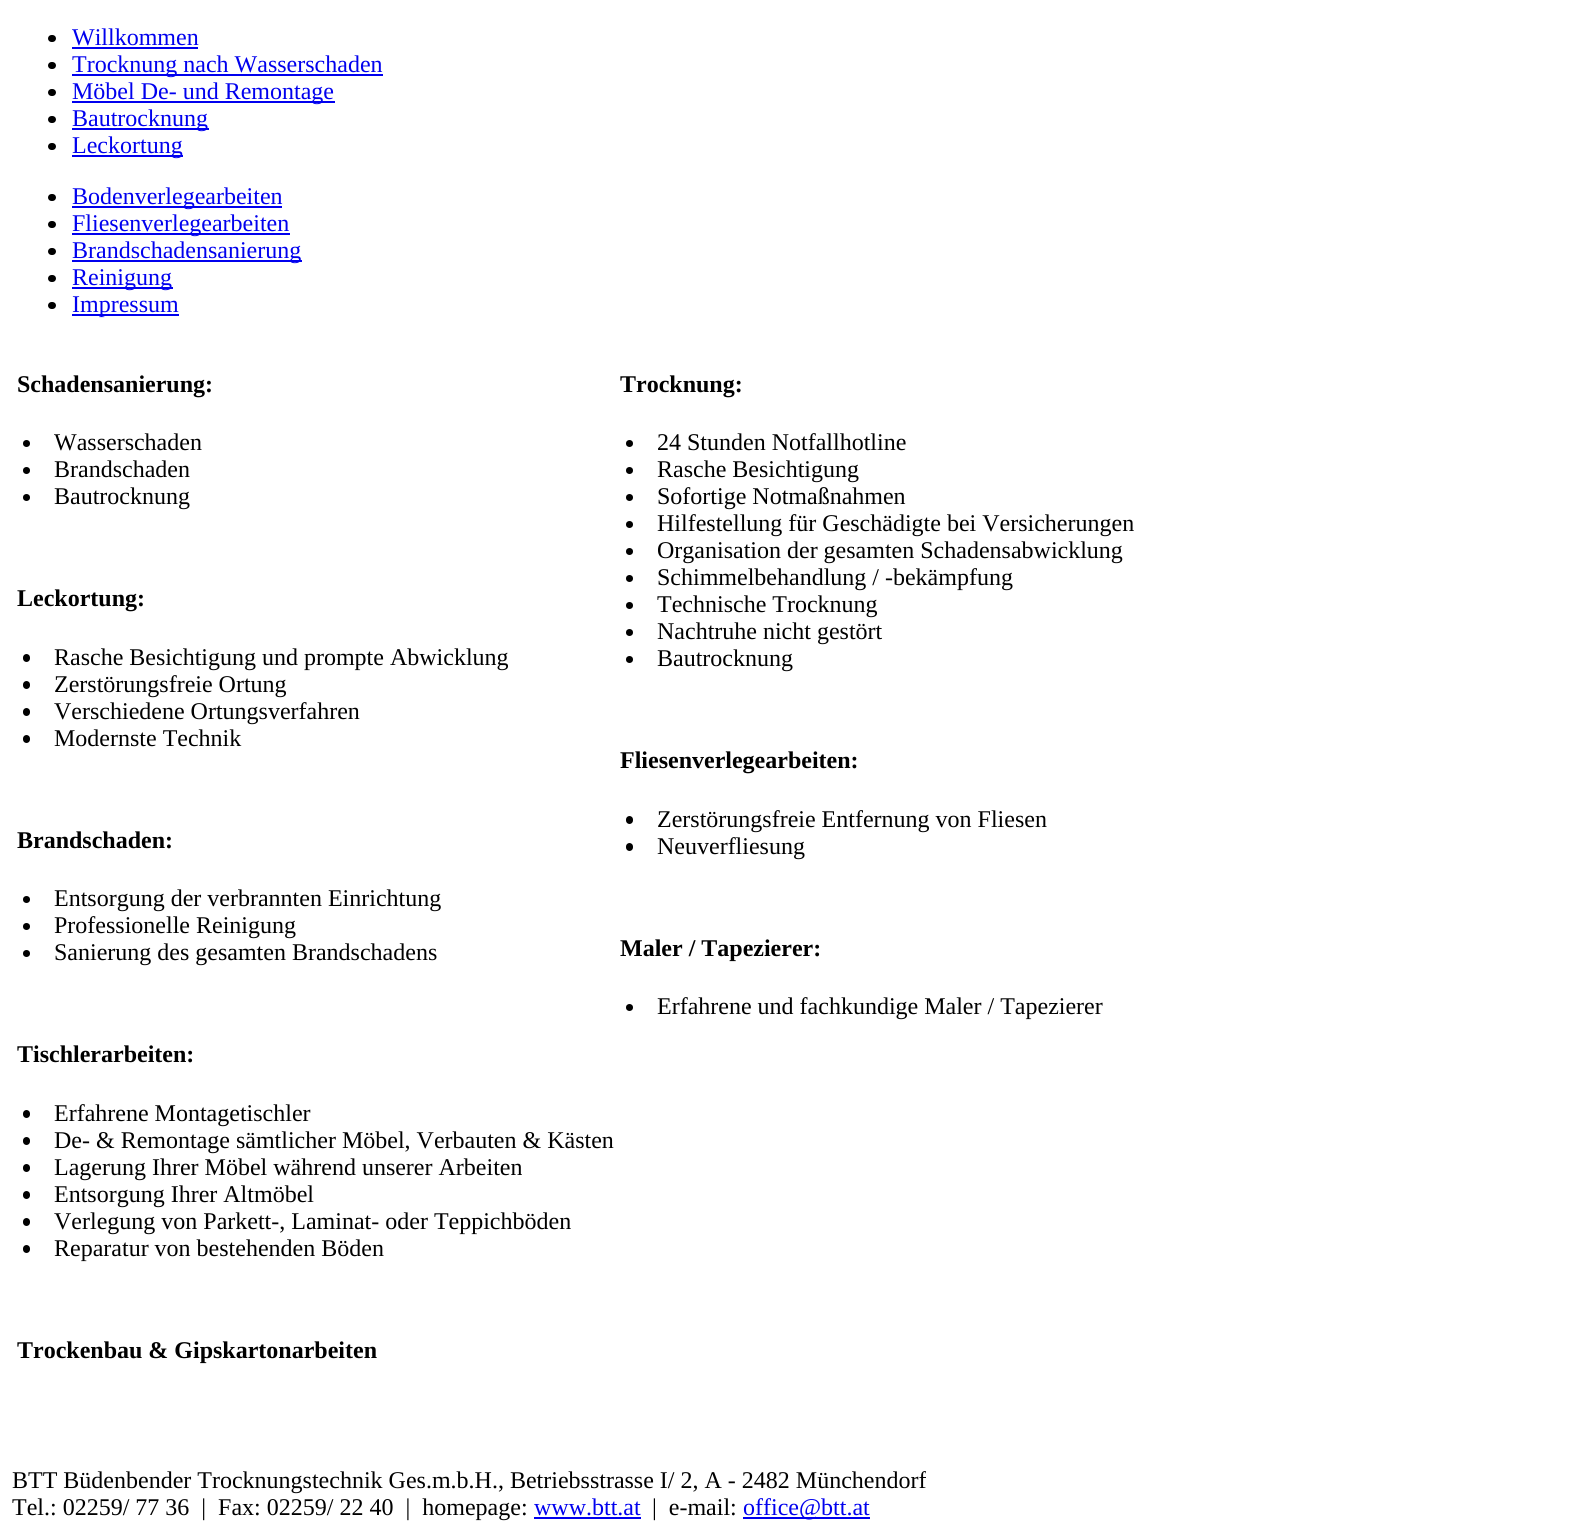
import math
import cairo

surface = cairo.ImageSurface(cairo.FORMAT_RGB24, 1593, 1540)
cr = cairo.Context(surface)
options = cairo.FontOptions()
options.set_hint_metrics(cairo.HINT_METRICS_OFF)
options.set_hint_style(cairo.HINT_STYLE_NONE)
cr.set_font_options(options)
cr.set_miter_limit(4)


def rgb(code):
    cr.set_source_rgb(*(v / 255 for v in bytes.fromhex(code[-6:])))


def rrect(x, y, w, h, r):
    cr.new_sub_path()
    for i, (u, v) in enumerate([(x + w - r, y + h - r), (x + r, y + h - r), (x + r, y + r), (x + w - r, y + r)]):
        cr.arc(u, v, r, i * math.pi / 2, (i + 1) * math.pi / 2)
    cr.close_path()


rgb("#ffffff")
cr.paint()
rgb("#000000")
rrect(48, 35, 8, 7, 3.5)
cr.fill()
rgb("#0000ee")
cr.rectangle(72, 47, 126, 2)
cr.fill()
rgb("#000000")
rrect(48, 62, 8, 7, 3.5)
cr.fill()
rgb("#0000ee")
cr.rectangle(72, 74, 311, 2)
cr.fill()
rgb("#000000")
rrect(48, 89, 8, 7, 3.5)
cr.fill()
rgb("#0000ee")
cr.rectangle(72, 101, 263, 2)
cr.fill()
rgb("#000000")
rrect(48, 116, 8, 7, 3.5)
cr.fill()
rgb("#0000ee")
cr.rectangle(72, 128, 137, 2)
cr.fill()
rgb("#000000")
rrect(48, 143, 8, 7, 3.5)
cr.fill()
rgb("#0000ee")
cr.rectangle(72, 155, 111, 2)
cr.fill()
rgb("#000000")
rrect(48, 194, 8, 7, 3.5)
cr.fill()
rgb("#0000ee")
cr.rectangle(72, 206, 210, 2)
cr.fill()
rgb("#000000")
rrect(48, 221, 8, 7, 3.5)
cr.fill()
rgb("#0000ee")
cr.rectangle(72, 233, 218, 2)
cr.fill()
rgb("#000000")
rrect(48, 248, 8, 7, 3.5)
cr.fill()
rgb("#0000ee")
cr.rectangle(72, 260, 230, 2)
cr.fill()
rgb("#000000")
rrect(48, 275, 8, 7, 3.5)
cr.fill()
rgb("#0000ee")
cr.rectangle(72, 287, 101, 2)
cr.fill()
rgb("#000000")
rrect(48, 302, 8, 7, 3.5)
cr.fill()
rgb("#0000ee")
cr.rectangle(72, 314, 107, 2)
cr.fill()
rgb("#000000")
cr.arc(26.5, 443.5, 3.5, 0, 2 * math.pi)
cr.fill()
cr.arc(26.5, 470.5, 3.5, 0, 2 * math.pi)
cr.fill()
cr.arc(26.5, 497.5, 3.5, 0, 2 * math.pi)
cr.fill()
rrect(23, 654, 7, 8, 3.5)
cr.fill()
rrect(23, 681, 7, 8, 3.5)
cr.fill()
rrect(23, 708, 7, 8, 3.5)
cr.fill()
rrect(23, 735, 7, 8, 3.5)
cr.fill()
cr.arc(26.5, 899.5, 3.5, 0, 2 * math.pi)
cr.fill()
cr.arc(26.5, 926.5, 3.5, 0, 2 * math.pi)
cr.fill()
cr.arc(26.5, 953.5, 3.5, 0, 2 * math.pi)
cr.fill()
rrect(23, 1110, 7, 8, 3.5)
cr.fill()
rrect(23, 1137, 7, 8, 3.5)
cr.fill()
rrect(23, 1164, 7, 8, 3.5)
cr.fill()
rrect(23, 1191, 7, 8, 3.5)
cr.fill()
rrect(23, 1218, 7, 8, 3.5)
cr.fill()
rrect(23, 1245, 7, 8, 3.5)
cr.fill()
cr.arc(629.5, 443.5, 3.5, 0, 2 * math.pi)
cr.fill()
cr.arc(629.5, 470.5, 3.5, 0, 2 * math.pi)
cr.fill()
cr.arc(629.5, 497.5, 3.5, 0, 2 * math.pi)
cr.fill()
cr.arc(629.5, 524.5, 3.5, 0, 2 * math.pi)
cr.fill()
cr.arc(629.5, 551.5, 3.5, 0, 2 * math.pi)
cr.fill()
cr.arc(629.5, 578.5, 3.5, 0, 2 * math.pi)
cr.fill()
cr.arc(629.5, 605.5, 3.5, 0, 2 * math.pi)
cr.fill()
cr.arc(629.5, 632.5, 3.5, 0, 2 * math.pi)
cr.fill()
cr.arc(629.5, 659.5, 3.5, 0, 2 * math.pi)
cr.fill()
rrect(626, 816, 7, 8, 3.5)
cr.fill()
rrect(626, 843, 7, 8, 3.5)
cr.fill()
cr.arc(629.5, 1007.5, 3.5, 0, 2 * math.pi)
cr.fill()
rgb("#0000ee")
cr.rectangle(534, 1517, 107, 2)
cr.fill()
cr.rectangle(743, 1517, 127, 2)
cr.fill()
cr.select_font_face("Liberation Serif")
cr.set_font_size(24)
for x, y, s in [
    (72, 45, "Willkommen"),
    (72, 72, "Trocknung nach Wasserschaden"),
    (72, 99, "Möbel De- und Remontage"),
    (72, 126, "Bautrocknung"),
    (72, 153, "Leckortung"),
    (72, 204, "Bodenverlegearbeiten"),
    (72, 231, "Fliesenverlegearbeiten"),
    (72, 258, "Brandschadensanierung"),
    (72, 285, "Reinigung"),
    (72, 312, "Impressum"),
]:
    cr.move_to(x, y)
    cr.show_text(s)
cr.select_font_face("Liberation Serif", cairo.FONT_SLANT_NORMAL, cairo.FONT_WEIGHT_BOLD)
rgb("#000000")
cr.move_to(17, 392)
cr.show_text("Schadensanierung:")
cr.select_font_face("Liberation Serif")
for x, y, s in [
    (54, 450, "Wasserschaden"),
    (54, 477, "Brandschaden"),
    (54, 504, "Bautrocknung"),
]:
    cr.move_to(x, y)
    cr.show_text(s)
cr.select_font_face("Liberation Serif", cairo.FONT_SLANT_NORMAL, cairo.FONT_WEIGHT_BOLD)
cr.move_to(17, 606)
cr.show_text("Leckortung:")
cr.select_font_face("Liberation Serif")
for x, y, s in [
    (54, 665, "Rasche Besichtigung und prompte Abwicklung"),
    (54, 692, "Zerstörungsfreie Ortung"),
    (54, 719, "Verschiedene Ortungsverfahren"),
    (54, 746, "Modernste Technik"),
]:
    cr.move_to(x, y)
    cr.show_text(s)
cr.select_font_face("Liberation Serif", cairo.FONT_SLANT_NORMAL, cairo.FONT_WEIGHT_BOLD)
cr.move_to(17, 848)
cr.show_text("Brandschaden:")
cr.select_font_face("Liberation Serif")
for x, y, s in [
    (54, 906, "Entsorgung der verbrannten Einrichtung"),
    (54, 933, "Professionelle Reinigung"),
    (54, 960, "Sanierung des gesamten Brandschadens"),
]:
    cr.move_to(x, y)
    cr.show_text(s)
cr.select_font_face("Liberation Serif", cairo.FONT_SLANT_NORMAL, cairo.FONT_WEIGHT_BOLD)
cr.move_to(17, 1062)
cr.show_text("Tischlerarbeiten:")
cr.select_font_face("Liberation Serif")
for x, y, s in [
    (54, 1121, "Erfahrene Montagetischler"),
    (54, 1148, "De- & Remontage sämtlicher Möbel, Verbauten & Kästen"),
    (54, 1175, "Lagerung Ihrer Möbel während unserer Arbeiten"),
    (54, 1202, "Entsorgung Ihrer Altmöbel"),
    (54, 1229, "Verlegung von Parkett-, Laminat- oder Teppichböden"),
    (54, 1256, "Reparatur von bestehenden Böden"),
]:
    cr.move_to(x, y)
    cr.show_text(s)
cr.select_font_face("Liberation Serif", cairo.FONT_SLANT_NORMAL, cairo.FONT_WEIGHT_BOLD)
cr.move_to(17, 1358)
cr.show_text("Trockenbau & Gipskartonarbeiten")
cr.move_to(620, 392)
cr.show_text("Trocknung:")
cr.select_font_face("Liberation Serif")
for x, y, s in [
    (657, 450, "24 Stunden Notfallhotline"),
    (657, 477, "Rasche Besichtigung"),
    (657, 504, "Sofortige Notmaßnahmen"),
    (657, 531, "Hilfestellung für Geschädigte bei Versicherungen"),
    (657, 558, "Organisation der gesamten Schadensabwicklung"),
    (657, 585, "Schimmelbehandlung / -bekämpfung"),
    (657, 612, "Technische Trocknung"),
    (657, 639, "Nachtruhe nicht gestört"),
    (657, 666, "Bautrocknung"),
]:
    cr.move_to(x, y)
    cr.show_text(s)
cr.select_font_face("Liberation Serif", cairo.FONT_SLANT_NORMAL, cairo.FONT_WEIGHT_BOLD)
cr.move_to(620, 768)
cr.show_text("Fliesenverlegearbeiten:")
cr.select_font_face("Liberation Serif")
cr.move_to(657, 827)
cr.show_text("Zerstörungsfreie Entfernung von Fliesen")
cr.move_to(657, 854)
cr.show_text("Neuverfliesung")
cr.select_font_face("Liberation Serif", cairo.FONT_SLANT_NORMAL, cairo.FONT_WEIGHT_BOLD)
cr.move_to(620, 956)
cr.show_text("Maler / Tapezierer:")
cr.select_font_face("Liberation Serif")
for x, y, s in [
    (657, 1014, "Erfahrene und fachkundige Maler / Tapezierer"),
    (12, 1488, "BTT Büdenbender Trocknungstechnik Ges.m.b.H., Betriebsstrasse I/ 2, A - 2482 Münchendorf"),
    (12, 1515, "Tel.: 02259/ 77 36  |  Fax: 02259/ 22 40  |  homepage:"),
]:
    cr.move_to(x, y)
    cr.show_text(s)
rgb("#0000ee")
cr.move_to(534, 1515)
cr.show_text("www.btt.at")
rgb("#000000")
cr.move_to(652, 1515)
cr.show_text("|  e-mail:")
rgb("#0000ee")
cr.move_to(743, 1515)
cr.show_text("office@btt.at")
surface.write_to_png("page.png")
